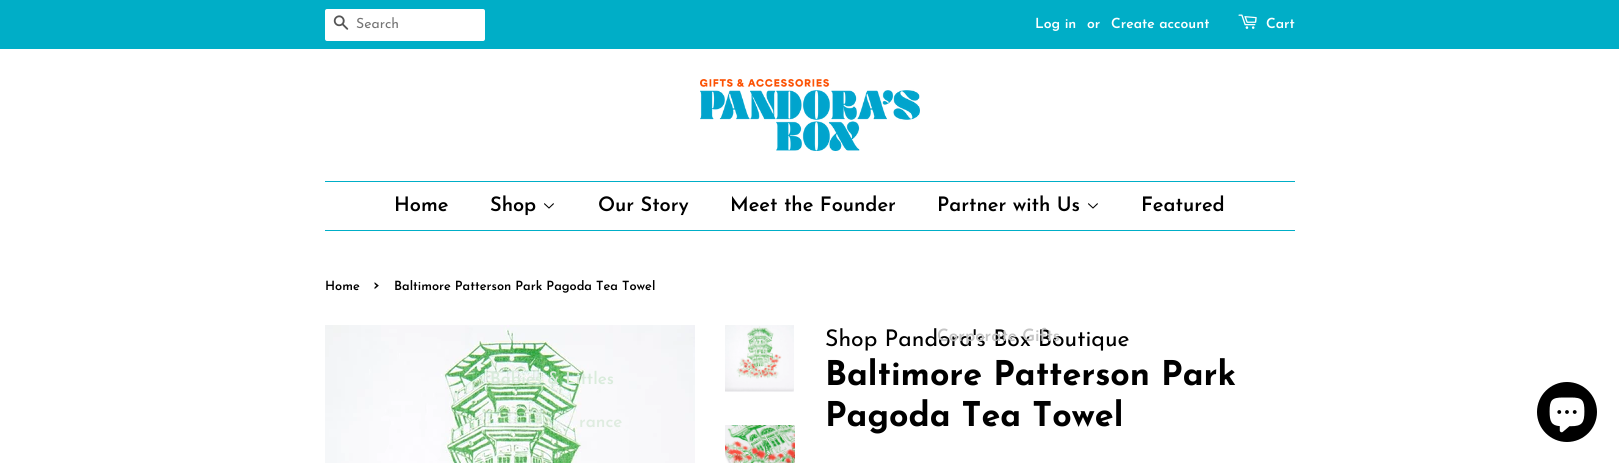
import math
import cairo

surface = cairo.ImageSurface(cairo.FORMAT_RGB24, 1619, 463)
cr = cairo.Context(surface)
options = cairo.FontOptions()
options.set_hint_metrics(cairo.HINT_METRICS_OFF)
options.set_hint_style(cairo.HINT_STYLE_NONE)
cr.set_font_options(options)
cr.set_miter_limit(4)


def rgb(code):
    cr.set_source_rgb(*(v / 255 for v in bytes.fromhex(code[-6:])))


def rrect(x, y, w, h, r):
    cr.new_sub_path()
    for i, (u, v) in enumerate([(x + w - r, y + h - r), (x + r, y + h - r), (x + r, y + r), (x + w - r, y + r)]):
        cr.arc(u, v, r, i * math.pi / 2, (i + 1) * math.pi / 2)
    cr.close_path()


def image(path, x, y, w, h):
    cr.save()
    cr.set_source_surface(cairo.ImageSurface.create_from_png(path), x, y)
    cr.rectangle(x, y, w, h)
    cr.fill()
    cr.restore()


rgb("#ffffff")
cr.paint()
rgb("#00aec7")
cr.rectangle(0, 0, 1619, 49)
cr.fill()
rgb("#ffffff")
rrect(325, 9, 160, 32, 2)
cr.fill()
image("img/1.png", 333, 15, 16, 15)
image("img/2.png", 1238, 14, 19, 15)
image("img/3.png", 700, 79, 220, 72)
rgb("#00aec7")
cr.rectangle(325, 181, 970, 1)
cr.fill()
cr.rectangle(325, 230, 970, 1)
cr.fill()
image("img/4.png", 544, 203, 10, 6)
image("img/4.png", 1088, 203, 10, 6)
image("img/5.png", 325, 325, 370, 138)
image("img/6.png", 725, 325, 69, 67)
image("img/7.png", 725, 425, 70, 38)
rgb("#000000")
cr.arc(1567, 412, 30, 0, 2 * math.pi)
cr.fill()
image("img/8.png", 1549, 397, 36, 36)
cr.select_font_face("Josefin Sans")
cr.set_font_size(14)
rgb("#757575")
cr.move_to(356, 28)
cr.show_text("Search")
cr.select_font_face("Josefin Sans SemiBold")
rgb("#ffffff")
for x, y, s in [
    (1035, 28, "Log in"),
    (1087, 28, "or"),
    (1111, 28, "Create account"),
    (1266, 28, "Cart"),
]:
    cr.move_to(x, y)
    cr.show_text(s)
cr.set_font_size(20)
rgb("#000000")
cr.move_to(394, 211)
cr.show_text("Home")
cr.move_to(490, 211)
cr.show_text("Shop")
cr.set_font_size(17)
rgb("#d9ebdb")
cr.move_to(490, 384)
cr.show_text("Babies & Littles")
rgb("#dfece0")
cr.move_to(579, 427)
cr.show_text("rance")
cr.set_font_size(20)
rgb("#000000")
for x, y, s in [
    (598, 211, "Our Story"),
    (730, 211, "Meet the Founder"),
    (937, 211, "Partner with Us"),
    (1141, 211, "Featured"),
]:
    cr.move_to(x, y)
    cr.show_text(s)
cr.set_font_size(12.75)
cr.move_to(325, 290)
cr.show_text("Home")
cr.set_font_size(18)
cr.move_to(373, 290)
cr.show_text("›")
cr.set_font_size(12.75)
cr.move_to(394, 290)
cr.show_text("Baltimore Patterson Park Pagoda Tea Towel")
cr.select_font_face("Josefin Sans")
cr.set_font_size(23)
cr.move_to(825, 346)
cr.show_text("Shop Pandora's Box Boutique")
cr.select_font_face("Josefin Sans SemiBold")
cr.set_font_size(17)
rgb("#c5c5c5")
cr.move_to(937, 341)
cr.show_text("Corporate Gifts")
cr.select_font_face("Josefin Sans", cairo.FONT_SLANT_NORMAL, cairo.FONT_WEIGHT_BOLD)
cr.set_font_size(34)
rgb("#000000")
cr.move_to(825, 385)
cr.show_text("Baltimore Patterson Park")
cr.move_to(825, 426)
cr.show_text("Pagoda Tea Towel")
surface.write_to_png("page.png")
